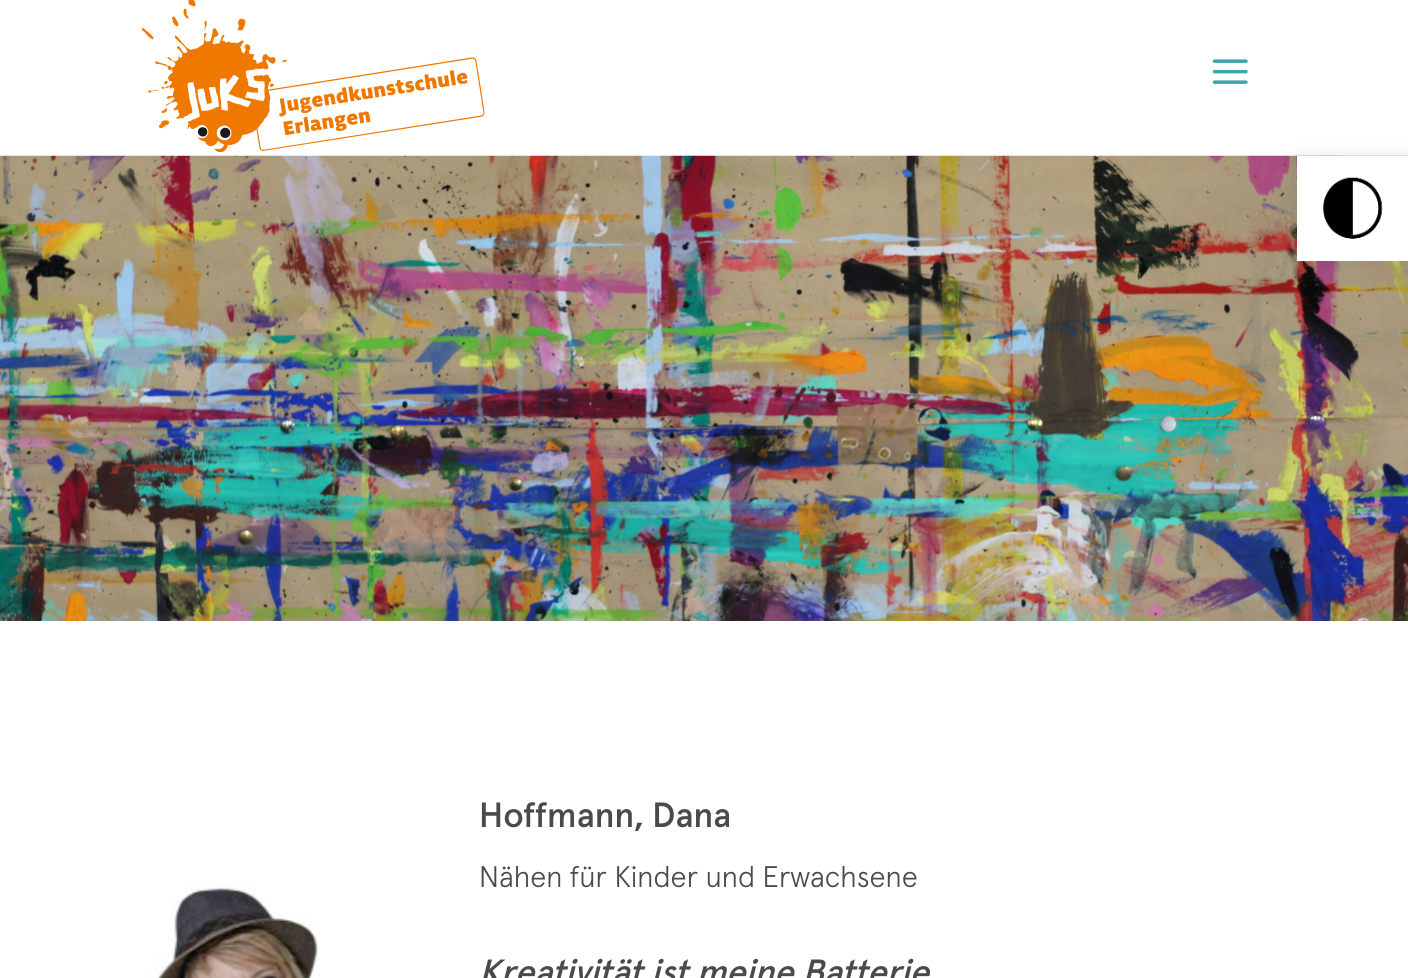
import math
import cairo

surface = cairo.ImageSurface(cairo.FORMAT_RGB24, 1408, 978)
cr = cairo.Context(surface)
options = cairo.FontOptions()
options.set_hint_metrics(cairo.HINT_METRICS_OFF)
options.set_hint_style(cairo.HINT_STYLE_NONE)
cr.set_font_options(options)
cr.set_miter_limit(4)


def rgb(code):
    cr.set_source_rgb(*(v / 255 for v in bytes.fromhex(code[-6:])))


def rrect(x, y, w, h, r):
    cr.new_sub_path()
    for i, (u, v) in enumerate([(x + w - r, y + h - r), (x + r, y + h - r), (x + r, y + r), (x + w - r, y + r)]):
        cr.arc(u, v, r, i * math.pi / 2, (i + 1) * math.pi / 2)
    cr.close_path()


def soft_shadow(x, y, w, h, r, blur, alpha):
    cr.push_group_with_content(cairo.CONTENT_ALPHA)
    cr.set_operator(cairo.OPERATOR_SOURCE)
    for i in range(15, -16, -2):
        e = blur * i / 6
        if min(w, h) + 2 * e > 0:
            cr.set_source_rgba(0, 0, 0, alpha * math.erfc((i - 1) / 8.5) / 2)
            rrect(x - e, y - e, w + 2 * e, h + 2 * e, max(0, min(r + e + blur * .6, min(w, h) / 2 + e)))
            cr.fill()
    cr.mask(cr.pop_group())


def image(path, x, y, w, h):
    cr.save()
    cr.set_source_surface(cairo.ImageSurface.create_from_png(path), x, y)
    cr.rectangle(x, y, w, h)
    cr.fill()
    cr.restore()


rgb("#ffffff")
cr.paint()
image("img/4.png", 0, 155, 1408, 466)
rgb("#000000")
soft_shadow(1297, 156, 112, 105, 0, 9, 0.1)
rgb("#ffffff")
cr.rectangle(1297, 156, 111, 105)
cr.fill()
image("img/1.png", 1323, 177, 60, 62)
image("img/2.png", 142, 0, 343, 152)
image("img/3.png", 1212, 59, 36, 25)
image("img/5.png", 149, 884, 171, 94)
cr.select_font_face("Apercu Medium")
cr.set_font_size(35)
rgb("#4a4a4a")
cr.move_to(479, 827)
cr.show_text("Hoffmann, Dana")
cr.select_font_face("Apercu Light")
cr.set_font_size(29.75)
cr.move_to(479, 887)
cr.show_text("Nähen für Kinder und Erwachsene")
cr.select_font_face("Apercu Medium", cairo.FONT_SLANT_ITALIC)
cr.set_font_size(35)
cr.move_to(479, 984)
cr.show_text("Kreativität ist meine Batterie")
surface.write_to_png("page.png")
